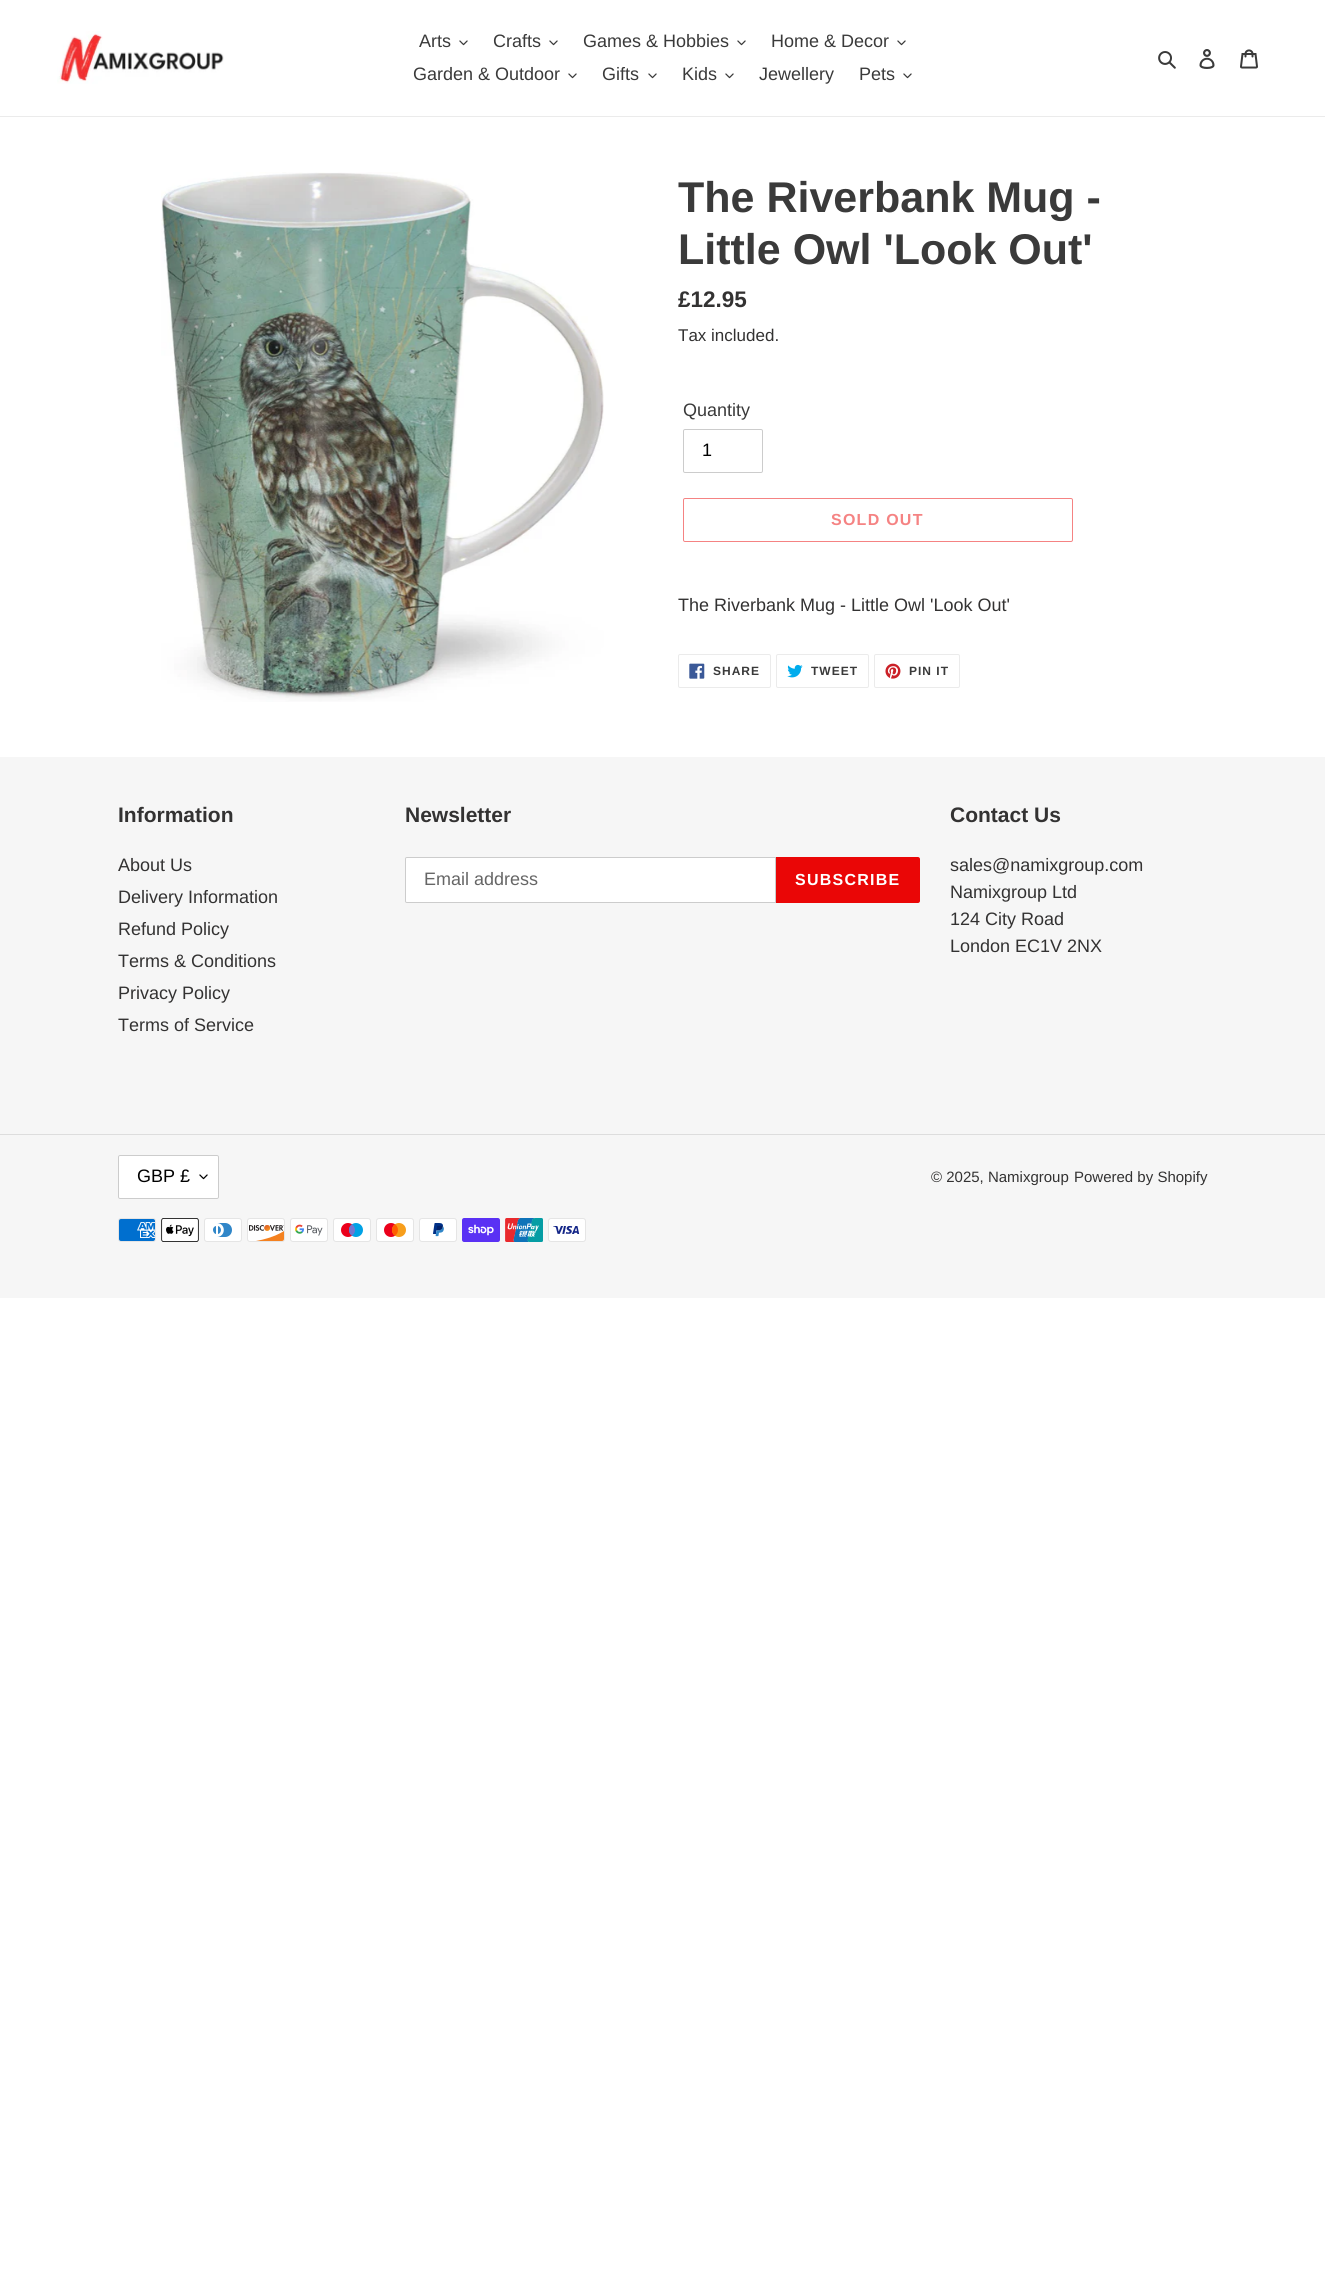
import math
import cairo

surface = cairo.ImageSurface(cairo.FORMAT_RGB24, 1325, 2269)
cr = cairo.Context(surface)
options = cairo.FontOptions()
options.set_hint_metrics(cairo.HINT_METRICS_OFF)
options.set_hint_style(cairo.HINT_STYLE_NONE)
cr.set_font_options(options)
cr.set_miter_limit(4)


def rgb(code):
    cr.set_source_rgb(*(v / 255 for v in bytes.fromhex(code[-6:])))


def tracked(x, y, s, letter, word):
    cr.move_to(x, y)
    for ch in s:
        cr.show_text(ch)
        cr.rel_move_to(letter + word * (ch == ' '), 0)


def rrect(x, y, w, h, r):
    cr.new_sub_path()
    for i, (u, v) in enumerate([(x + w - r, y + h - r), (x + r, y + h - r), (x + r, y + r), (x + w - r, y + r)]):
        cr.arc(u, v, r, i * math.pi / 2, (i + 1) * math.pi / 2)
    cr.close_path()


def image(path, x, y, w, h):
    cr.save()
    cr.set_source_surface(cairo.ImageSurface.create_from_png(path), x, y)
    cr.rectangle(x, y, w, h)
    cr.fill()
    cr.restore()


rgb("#ffffff")
cr.paint()
rgb("#ebebeb")
cr.rectangle(0, 116, 1325, 1)
cr.fill()
image("img/1.png", 57, 31, 167, 53)
image("img/2.png", 459, 40, 9, 6)
image("img/2.png", 549, 40, 9, 6)
image("img/2.png", 737, 40, 9, 6)
image("img/2.png", 897, 40, 9, 6)
image("img/2.png", 568, 73, 9, 6)
image("img/2.png", 648, 73, 9, 6)
image("img/2.png", 725, 73, 9, 6)
image("img/2.png", 903, 73, 9, 6)
image("img/3.png", 1158, 51, 18, 18)
image("img/4.png", 1199, 49, 16, 20)
image("img/5.png", 1240, 49, 18, 20)
image("img/6.png", 161, 172, 443, 530)
rrect(683.5, 429.5, 79, 43, 1.5)
rgb("#cccccc")
cr.set_line_width(1)
cr.stroke()
rrect(683.5, 498.5, 389, 43, 1.5)
rgb("#f58383")
cr.stroke()
rrect(678.5, 654.5, 92, 33, 1.5)
rgb("#ebebeb")
cr.stroke()
image("img/7.png", 689, 663, 16, 16)
rrect(776.5, 654.5, 92, 33, 1.5)
cr.stroke()
image("img/8.png", 787, 664, 16, 14)
rrect(874.5, 654.5, 85, 33, 1.5)
cr.stroke()
image("img/9.png", 885, 663, 16, 16)
rgb("#f6f6f6")
cr.rectangle(0, 757, 1325, 541)
cr.fill()
rgb("#ffffff")
cr.new_path()
cr.move_to(407, 857.5)
cr.line_to(775.5, 857.5)
cr.line_to(775.5, 902.5)
cr.line_to(407, 902.5)
cr.curve_to(406, 902.5, 405.5, 902, 405.5, 901)
cr.line_to(405.5, 859)
cr.curve_to(405.5, 858, 406, 857.5, 407, 857.5)
cr.close_path()
cr.fill_preserve()
rgb("#cccccc")
cr.stroke()
rgb("#ea0606")
cr.new_path()
cr.move_to(776, 857)
cr.line_to(918, 857)
cr.curve_to(919, 857, 920, 858, 920, 859)
cr.line_to(920, 901)
cr.curve_to(920, 902, 919, 903, 918, 903)
cr.line_to(776, 903)
cr.close_path()
cr.fill()
rgb("#dddddd")
cr.rectangle(0, 1134, 1325, 1)
cr.fill()
rgb("#ffffff")
rrect(118, 1155, 101, 44, 2)
cr.fill()
image("img/10.png", 199, 1174, 9, 6)
rrect(118.5, 1155.5, 100, 43, 1.5)
rgb("#cccccc")
cr.stroke()
image("img/11.png", 118, 1218, 38, 24)
image("img/12.png", 161, 1218, 38, 24)
image("img/13.png", 204, 1218, 38, 24)
image("img/14.png", 247, 1218, 38, 24)
image("img/15.png", 290, 1218, 38, 24)
image("img/16.png", 333, 1218, 38, 24)
image("img/17.png", 376, 1218, 38, 24)
image("img/18.png", 419, 1218, 38, 24)
image("img/19.png", 462, 1218, 38, 24)
image("img/20.png", 505, 1218, 38, 24)
image("img/21.png", 548, 1218, 38, 24)
cr.select_font_face("Liberation Sans")
cr.set_font_size(18)
rgb("#3a3a3a")
for x, y, s in [
    (419, 47, "Arts"),
    (493, 47, "Crafts"),
    (583, 47, "Games & Hobbies"),
    (771, 47, "Home & Decor"),
    (413, 80, "Garden & Outdoor"),
    (602, 80, "Gifts"),
    (682, 80, "Kids"),
    (759, 80, "Jewellery"),
    (859, 80, "Pets"),
]:
    cr.move_to(x, y)
    cr.show_text(s)
cr.select_font_face("Liberation Sans", cairo.FONT_SLANT_NORMAL, cairo.FONT_WEIGHT_BOLD)
cr.set_font_size(43)
cr.move_to(678, 212)
cr.show_text("The Riverbank Mug -")
cr.move_to(678, 264)
cr.show_text("Little Owl 'Look Out'")
cr.set_font_size(22.5)
rgb("#333232")
cr.move_to(678, 307)
cr.show_text("£12.95")
cr.select_font_face("Liberation Sans")
cr.set_font_size(17)
cr.move_to(678, 341)
cr.show_text("Tax included.")
cr.set_font_size(18)
rgb("#3a3a3a")
cr.move_to(683, 416)
cr.show_text("Quantity")
rgb("#000000")
cr.move_to(702, 456)
cr.show_text("1")
cr.select_font_face("Liberation Sans", cairo.FONT_SLANT_NORMAL, cairo.FONT_WEIGHT_BOLD)
cr.set_font_size(16)
rgb("#f58383")
tracked(831, 525, "SOLD OUT", 1.25, 0)
cr.select_font_face("Liberation Sans")
cr.set_font_size(18)
rgb("#333232")
cr.move_to(678, 611)
cr.show_text("The Riverbank Mug - Little Owl 'Look Out'")
cr.select_font_face("Liberation Sans", cairo.FONT_SLANT_NORMAL, cairo.FONT_WEIGHT_BOLD)
cr.set_font_size(12)
rgb("#3a3a3a")
for x, y, s in [
    (713, 675, "SHARE"),
    (811, 675, "TWEET"),
    (909, 675, "PIN IT"),
]:
    tracked(x, y, s, 1, 0)
cr.set_font_size(21)
rgb("#333232")
cr.move_to(118, 822)
cr.show_text("Information")
cr.select_font_face("Liberation Sans")
cr.set_font_size(18)
for x, y, s in [
    (118, 871, "About Us"),
    (118, 903, "Delivery Information"),
    (118, 935, "Refund Policy"),
    (118, 967, "Terms & Conditions"),
    (118, 999, "Privacy Policy"),
    (118, 1031, "Terms of Service"),
]:
    cr.move_to(x, y)
    cr.show_text(s)
cr.select_font_face("Liberation Sans", cairo.FONT_SLANT_NORMAL, cairo.FONT_WEIGHT_BOLD)
cr.set_font_size(21)
cr.move_to(405, 822)
cr.show_text("Newsletter")
cr.select_font_face("Liberation Sans")
cr.set_font_size(18)
rgb("#666666")
cr.move_to(424, 885)
cr.show_text("Email address")
cr.select_font_face("Liberation Sans", cairo.FONT_SLANT_NORMAL, cairo.FONT_WEIGHT_BOLD)
cr.set_font_size(16)
rgb("#ffffff")
tracked(795, 885, "SUBSCRIBE", 1.25, 0)
cr.set_font_size(21)
rgb("#333232")
cr.move_to(950, 822)
cr.show_text("Contact Us")
cr.select_font_face("Liberation Sans")
cr.set_font_size(18)
for x, y, s in [
    (950, 871, "sales@namixgroup.com"),
    (950, 898, "Namixgroup Ltd"),
    (950, 925, "124 City Road"),
    (950, 952, "London EC1V 2NX"),
]:
    cr.move_to(x, y)
    cr.show_text(s)
rgb("#000000")
cr.move_to(137, 1182)
cr.show_text("GBP £")
cr.set_font_size(15)
rgb("#333232")
cr.move_to(931, 1182)
cr.show_text("© 2025, Namixgroup")
cr.move_to(1074, 1182)
cr.show_text("Powered by Shopify")
surface.write_to_png("page.png")
